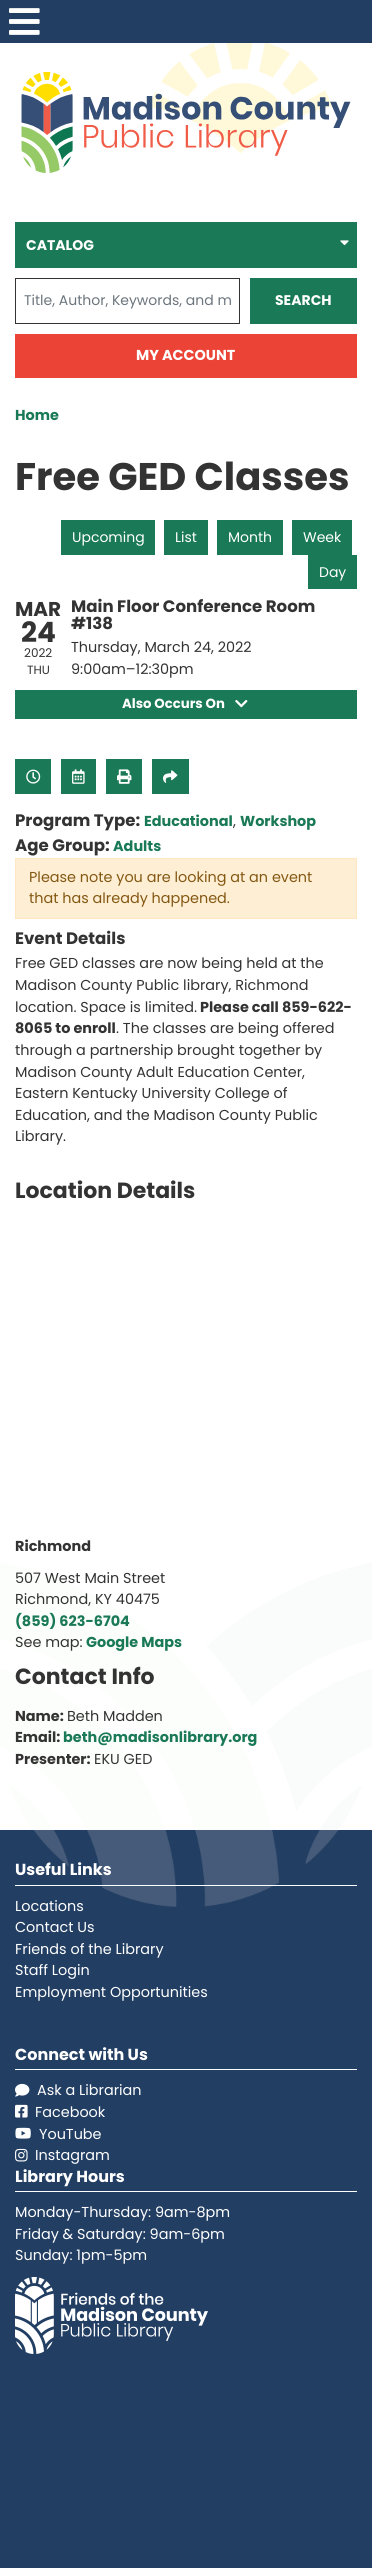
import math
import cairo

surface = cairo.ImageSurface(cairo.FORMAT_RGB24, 372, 2568)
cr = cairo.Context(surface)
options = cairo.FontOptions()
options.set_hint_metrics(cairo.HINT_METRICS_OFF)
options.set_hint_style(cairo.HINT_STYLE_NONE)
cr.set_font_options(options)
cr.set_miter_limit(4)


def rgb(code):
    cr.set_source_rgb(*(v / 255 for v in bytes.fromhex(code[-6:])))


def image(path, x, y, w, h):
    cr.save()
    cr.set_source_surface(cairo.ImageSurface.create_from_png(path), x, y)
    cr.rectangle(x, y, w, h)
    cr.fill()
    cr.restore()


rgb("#ffffff")
cr.paint()
rgb("#223e63")
cr.rectangle(0, 0, 372, 43)
cr.fill()
image("img/1.png", 9, 8, 31, 27)
image("img/2.png", 0, 1562, 372, 268)
image("img/3.png", 152, 43, 180, 110)
image("img/4.png", 21, 72, 330, 101)
rgb("#1a7956")
cr.rectangle(15.5, 222.5, 341, 45)
cr.fill_preserve()
cr.set_line_width(1)
cr.stroke()
image("img/5.png", 340, 240, 9, 6)
cr.rectangle(15.5, 278.5, 224, 45)
rgb("#333333")
cr.stroke()
for x, y, w, h, color in [
    (250, 278, 107, 46, "#1a7956"),
    (15, 334, 342, 44, "#eb4336"),
    (61, 520, 94, 35, "#1a7956"),
    (164, 520, 44, 35, "#1a7956"),
    (217, 520, 66, 35, "#1a7956"),
    (292, 520, 60, 35, "#1a7956"),
    (308, 555, 49, 34, "#1a7956"),
    (15, 690, 342, 29, "#1a7956"),
]:
    rgb(color)
    cr.rectangle(x, y, w, h)
    cr.fill()
image("img/6.png", 235, 699, 13, 9)
cr.rectangle(15, 759, 36, 35)
cr.fill()
image("img/7.png", 26, 769, 15, 15)
cr.rectangle(61, 759, 35, 35)
cr.fill()
image("img/8.png", 72, 769, 13, 15)
cr.rectangle(106, 759, 36, 35)
cr.fill()
image("img/9.png", 117, 769, 15, 15)
cr.rectangle(152, 759, 37, 35)
cr.fill()
image("img/10.png", 163, 770, 15, 13)
rgb("#feeed3")
cr.rectangle(15.5, 858.5, 341, 60)
cr.fill_preserve()
rgb("#fee7c2")
cr.stroke()
rgb("#223e63")
cr.rectangle(0, 1830, 372, 738)
cr.fill()
image("img/11.png", 33, 1830, 306, 77)
rgb("#ffffff")
cr.rectangle(15, 1885, 342, 1)
cr.fill()
cr.rectangle(15, 2069, 342, 1)
cr.fill()
image("img/12.png", 15, 2083, 15, 14)
image("img/13.png", 15, 2104, 13, 14)
image("img/14.png", 15, 2127, 16, 12)
image("img/15.png", 15, 2148, 13, 14)
cr.rectangle(15, 2191, 342, 1)
cr.fill()
image("img/16.png", 15, 2277, 193, 77)
cr.select_font_face("Poppins", cairo.FONT_SLANT_NORMAL, cairo.FONT_WEIGHT_BOLD)
cr.set_font_size(14)
cr.move_to(26, 250)
cr.show_text("CATALOG")
cr.select_font_face("Poppins")
rgb("#6c757d")
cr.move_to(24, 305)
cr.show_text("Title, Author, Keywords, and m")
cr.select_font_face("Poppins", cairo.FONT_SLANT_NORMAL, cairo.FONT_WEIGHT_BOLD)
rgb("#ffffff")
cr.move_to(275, 305)
cr.show_text("SEARCH")
cr.set_font_size(14.4)
cr.move_to(136, 360)
cr.show_text("MY ACCOUNT")
rgb("#1a7956")
cr.move_to(15, 420)
cr.show_text("Home")
cr.set_font_size(38.5)
rgb("#333333")
cr.move_to(15, 490)
cr.show_text("Free GED Classes")
cr.select_font_face("Poppins")
cr.set_font_size(14)
rgb("#ffffff")
for x, y, s in [
    (72, 542, "Upcoming"),
    (175, 542, "List"),
    (228, 542, "Month"),
    (303, 542, "Week"),
    (319, 577, "Day"),
]:
    cr.move_to(x, y)
    cr.show_text(s)
cr.select_font_face("Poppins", cairo.FONT_SLANT_NORMAL, cairo.FONT_WEIGHT_BOLD)
cr.set_font_size(20)
rgb("#333333")
cr.move_to(15, 616)
cr.show_text("MAR")
cr.set_font_size(28)
cr.move_to(21, 642)
cr.show_text("24")
cr.select_font_face("Poppins")
cr.set_font_size(12)
cr.move_to(24, 657)
cr.show_text("2022")
cr.move_to(27, 674)
cr.show_text("THU")
cr.select_font_face("Poppins", cairo.FONT_SLANT_NORMAL, cairo.FONT_WEIGHT_BOLD)
cr.set_font_size(16.6)
cr.move_to(71, 612)
cr.show_text("Main Floor Conference Room")
cr.move_to(71, 629)
cr.show_text("#138")
cr.select_font_face("Poppins")
cr.set_font_size(14.4)
cr.move_to(71, 652)
cr.show_text("Thursday, March 24, 2022")
cr.move_to(71, 674)
cr.show_text("9:00am–12:30pm")
cr.select_font_face("Poppins", cairo.FONT_SLANT_NORMAL, cairo.FONT_WEIGHT_BOLD)
cr.set_font_size(13.25)
rgb("#ffffff")
cr.move_to(122, 708)
cr.show_text("Also Occurs On")
cr.set_font_size(16.6)
rgb("#333333")
cr.move_to(15, 826)
cr.show_text("Program Type:")
cr.set_font_size(14.4)
rgb("#1a7956")
cr.move_to(144, 826)
cr.show_text("Educational")
cr.select_font_face("Poppins")
rgb("#333333")
cr.move_to(233, 826)
cr.show_text(",")
cr.select_font_face("Poppins", cairo.FONT_SLANT_NORMAL, cairo.FONT_WEIGHT_BOLD)
rgb("#1a7956")
cr.move_to(240, 826)
cr.show_text("Workshop")
cr.set_font_size(16.6)
rgb("#333333")
cr.move_to(15, 851)
cr.show_text("Age Group:")
cr.set_font_size(14.4)
rgb("#1a7956")
cr.move_to(113, 851)
cr.show_text("Adults")
cr.select_font_face("Poppins")
rgb("#835813")
cr.move_to(29, 882)
cr.show_text("Please note you are looking at an event")
cr.move_to(29, 903)
cr.show_text("that has already happened.")
cr.select_font_face("Poppins", cairo.FONT_SLANT_NORMAL, cairo.FONT_WEIGHT_BOLD)
cr.set_font_size(16.6)
rgb("#333333")
cr.move_to(15, 944)
cr.show_text("Event Details")
cr.select_font_face("Poppins")
cr.set_font_size(14.4)
for x, y, s in [
    (15, 968, "Free GED classes are now being held at the"),
    (15, 990, "Madison County Public library, Richmond"),
    (15, 1012, "location. Space is limited."),
]:
    cr.move_to(x, y)
    cr.show_text(s)
cr.select_font_face("Poppins", cairo.FONT_SLANT_NORMAL, cairo.FONT_WEIGHT_BOLD)
cr.move_to(200, 1012)
cr.show_text("Please call 859-622-")
cr.move_to(15, 1033)
cr.show_text("8065 to enroll")
cr.select_font_face("Poppins")
for x, y, s in [
    (116, 1033, ". The classes are being offered"),
    (15, 1055, "through a partnership brought together by"),
    (15, 1077, "Madison County Adult Education Center,"),
    (15, 1098, "Eastern Kentucky University College of"),
    (15, 1120, "Education, and the Madison County Public"),
    (15, 1141, "Library."),
]:
    cr.move_to(x, y)
    cr.show_text(s)
cr.select_font_face("Poppins", cairo.FONT_SLANT_NORMAL, cairo.FONT_WEIGHT_BOLD)
cr.set_font_size(22)
cr.move_to(15, 1198)
cr.show_text("Location Details")
cr.set_font_size(14.4)
cr.move_to(15, 1551)
cr.show_text("Richmond")
cr.select_font_face("Poppins")
cr.move_to(15, 1583)
cr.show_text("507 West Main Street")
cr.move_to(15, 1604)
cr.show_text("Richmond, KY 40475")
cr.select_font_face("Poppins", cairo.FONT_SLANT_NORMAL, cairo.FONT_WEIGHT_BOLD)
rgb("#1a7956")
cr.move_to(15, 1626)
cr.show_text("(859) 623-6704")
cr.select_font_face("Poppins")
rgb("#333333")
cr.move_to(15, 1647)
cr.show_text("See map:")
cr.select_font_face("Poppins", cairo.FONT_SLANT_NORMAL, cairo.FONT_WEIGHT_BOLD)
rgb("#1a7956")
cr.move_to(86, 1647)
cr.show_text("Google Maps")
cr.set_font_size(22)
rgb("#333333")
cr.move_to(15, 1684)
cr.show_text("Contact Info")
cr.set_font_size(14.4)
cr.move_to(15, 1721)
cr.show_text("Name:")
cr.select_font_face("Poppins")
cr.move_to(67, 1721)
cr.show_text("Beth Madden")
cr.select_font_face("Poppins", cairo.FONT_SLANT_NORMAL, cairo.FONT_WEIGHT_BOLD)
cr.move_to(15, 1742)
cr.show_text("Email:")
rgb("#1a7956")
cr.move_to(63, 1742)
cr.show_text("beth@madisonlibrary.org")
rgb("#333333")
cr.move_to(15, 1764)
cr.show_text("Presenter:")
cr.select_font_face("Poppins")
cr.move_to(94, 1764)
cr.show_text("EKU GED")
cr.select_font_face("Poppins", cairo.FONT_SLANT_NORMAL, cairo.FONT_WEIGHT_BOLD)
cr.set_font_size(16)
rgb("#ffffff")
cr.move_to(15, 1875)
cr.show_text("Useful Links")
cr.select_font_face("Poppins")
cr.set_font_size(14.4)
for x, y, s in [
    (15, 1911, "Locations"),
    (15, 1932, "Contact Us"),
    (15, 1954, "Friends of the Library"),
    (15, 1975, "Staff Login"),
    (15, 1997, "Employment Opportunities"),
]:
    cr.move_to(x, y)
    cr.show_text(s)
cr.select_font_face("Poppins", cairo.FONT_SLANT_NORMAL, cairo.FONT_WEIGHT_BOLD)
cr.set_font_size(16)
cr.move_to(15, 2060)
cr.show_text("Connect with Us")
cr.select_font_face("Poppins")
cr.set_font_size(14.4)
for x, y, s in [
    (37, 2095, "Ask a Librarian"),
    (35, 2117, "Facebook"),
    (39, 2139, "YouTube"),
    (35, 2160, "Instagram"),
]:
    cr.move_to(x, y)
    cr.show_text(s)
cr.select_font_face("Poppins", cairo.FONT_SLANT_NORMAL, cairo.FONT_WEIGHT_BOLD)
cr.set_font_size(16)
cr.move_to(15, 2182)
cr.show_text("Library Hours")
cr.select_font_face("Poppins")
cr.set_font_size(14.4)
for x, y, s in [
    (15, 2217, "Monday-Thursday: 9am-8pm"),
    (15, 2239, "Friday & Saturday: 9am-6pm"),
    (15, 2260, "Sunday: 1pm-5pm"),
]:
    cr.move_to(x, y)
    cr.show_text(s)
surface.write_to_png("page.png")
